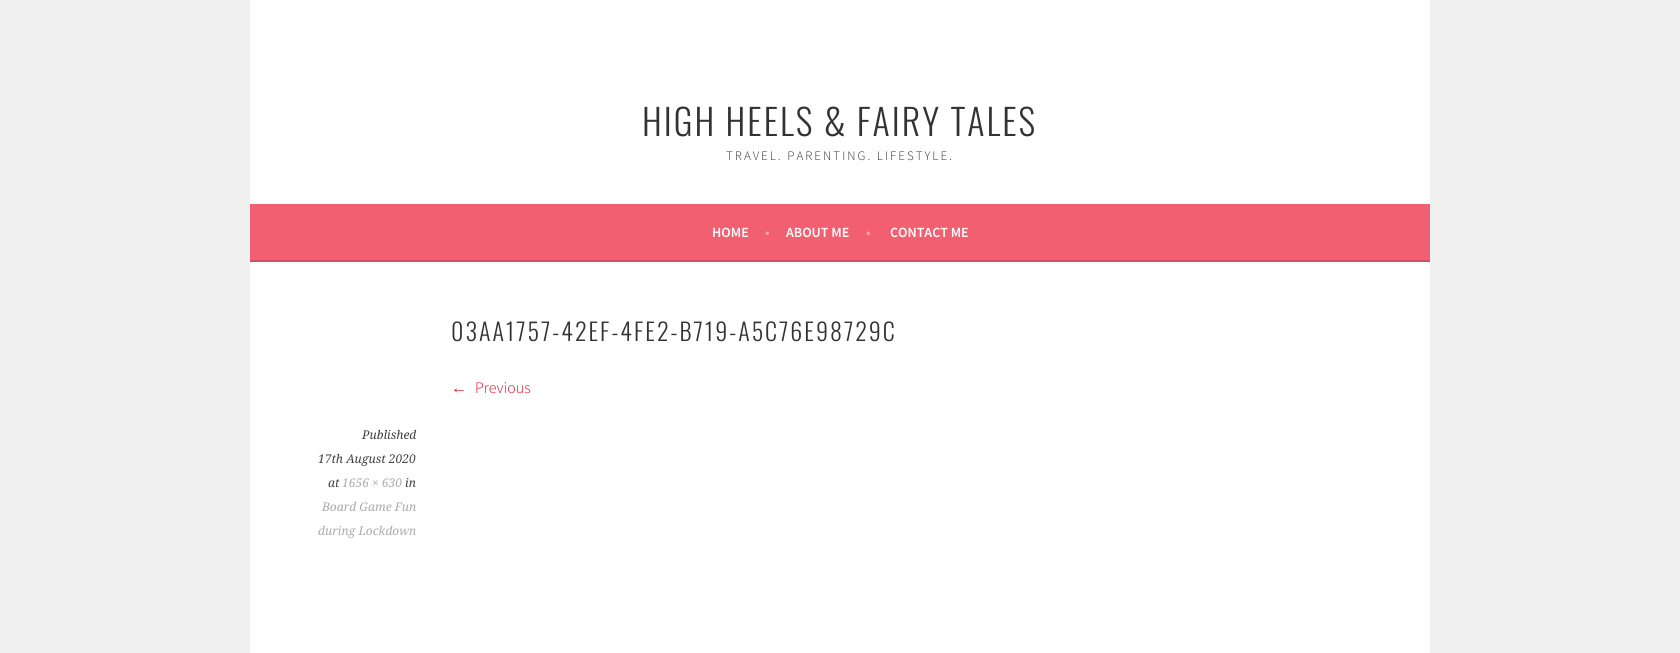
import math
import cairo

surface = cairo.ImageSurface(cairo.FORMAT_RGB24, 1680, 653)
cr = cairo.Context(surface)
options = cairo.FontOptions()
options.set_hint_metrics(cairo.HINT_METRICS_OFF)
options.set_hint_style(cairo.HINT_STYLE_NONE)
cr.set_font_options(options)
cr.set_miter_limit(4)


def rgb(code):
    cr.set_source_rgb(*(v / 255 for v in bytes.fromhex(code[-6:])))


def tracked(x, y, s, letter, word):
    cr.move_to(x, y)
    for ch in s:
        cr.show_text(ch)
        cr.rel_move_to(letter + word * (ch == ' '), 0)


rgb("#f0f0f0")
cr.paint()
for x, y, w, h, color in [
    (250, 0, 1180, 204, "#ffffff"),
    (250, 204, 1180, 56, "#f25f70"),
    (250, 260, 1180, 2, "#ce515f"),
    (250, 262, 1180, 391, "#ffffff"),
]:
    rgb(color)
    cr.rectangle(x, y, w, h)
    cr.fill()
cr.select_font_face("Oswald Light")
cr.set_font_size(36)
rgb("#333333")
tracked(642, 136, "HIGH HEELS & FAIRY TALES", 2, 0)
cr.select_font_face("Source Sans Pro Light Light")
cr.set_font_size(13)
tracked(726, 160, "TRAVEL. PARENTING. LIFESTYLE.", 2, 0)
cr.select_font_face("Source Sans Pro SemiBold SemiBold")
cr.set_font_size(14)
rgb("#ffffff")
cr.move_to(712, 237)
cr.show_text("HOME")
rgb("#ffa4ad")
cr.move_to(765, 237)
cr.show_text("•")
rgb("#ffffff")
cr.move_to(786, 237)
cr.show_text("ABOUT ME")
rgb("#ffa4ad")
cr.move_to(866, 237)
cr.show_text("•")
rgb("#ffffff")
cr.move_to(890, 237)
cr.show_text("CONTACT ME")
cr.select_font_face("Oswald Light")
cr.set_font_size(24)
rgb("#333333")
tracked(451, 341, "03AA1757-42EF-4FE2-B719-A5C76E98729C", 2, 0)
cr.select_font_face("Liberation Sans")
cr.set_font_size(16)
rgb("#e1122a")
cr.move_to(451, 393)
cr.show_text("←")
cr.select_font_face("Source Sans Pro Light Light")
cr.move_to(475, 393)
cr.show_text("Previous")
cr.select_font_face("Droid Serif", cairo.FONT_SLANT_ITALIC)
cr.set_font_size(12)
rgb("#404040")
for x, y, s in [
    (362, 439, "Published"),
    (318, 463, "17th August 2020"),
    (328, 487, "at"),
]:
    cr.move_to(x, y)
    cr.show_text(s)
rgb("#aaaaaa")
cr.move_to(342, 487)
cr.show_text("1656 × 630")
rgb("#404040")
cr.move_to(405, 487)
cr.show_text("in")
rgb("#aaaaaa")
cr.move_to(322, 511)
cr.show_text("Board Game Fun")
cr.move_to(318, 535)
cr.show_text("during Lockdown")
surface.write_to_png("page.png")
